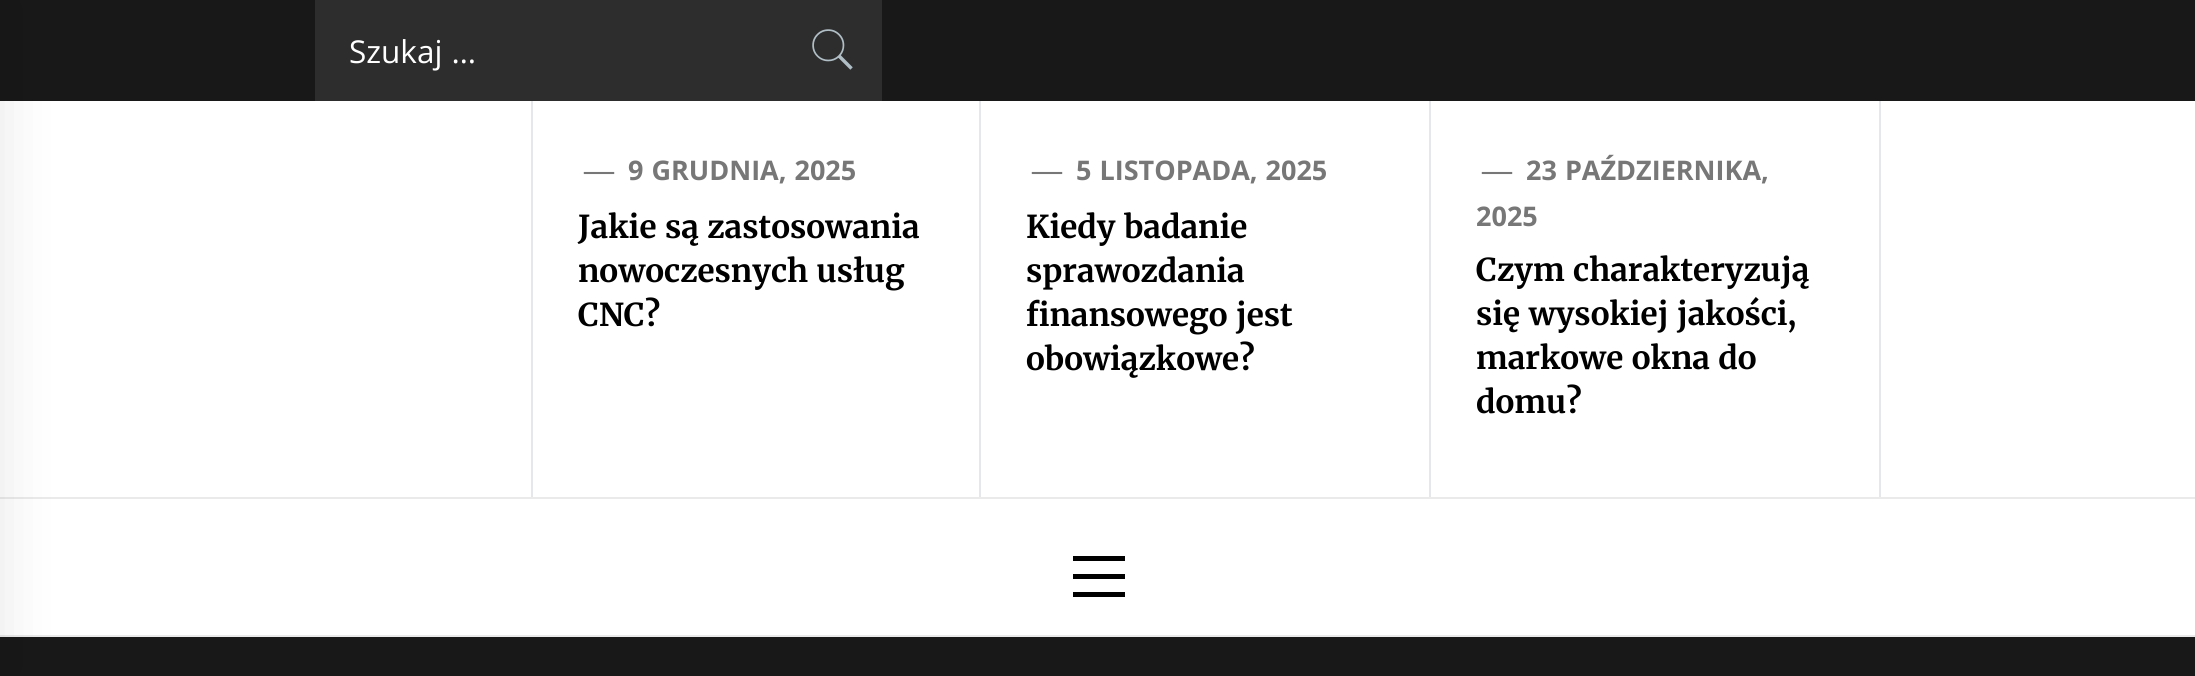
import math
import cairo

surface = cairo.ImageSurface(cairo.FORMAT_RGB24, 2195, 676)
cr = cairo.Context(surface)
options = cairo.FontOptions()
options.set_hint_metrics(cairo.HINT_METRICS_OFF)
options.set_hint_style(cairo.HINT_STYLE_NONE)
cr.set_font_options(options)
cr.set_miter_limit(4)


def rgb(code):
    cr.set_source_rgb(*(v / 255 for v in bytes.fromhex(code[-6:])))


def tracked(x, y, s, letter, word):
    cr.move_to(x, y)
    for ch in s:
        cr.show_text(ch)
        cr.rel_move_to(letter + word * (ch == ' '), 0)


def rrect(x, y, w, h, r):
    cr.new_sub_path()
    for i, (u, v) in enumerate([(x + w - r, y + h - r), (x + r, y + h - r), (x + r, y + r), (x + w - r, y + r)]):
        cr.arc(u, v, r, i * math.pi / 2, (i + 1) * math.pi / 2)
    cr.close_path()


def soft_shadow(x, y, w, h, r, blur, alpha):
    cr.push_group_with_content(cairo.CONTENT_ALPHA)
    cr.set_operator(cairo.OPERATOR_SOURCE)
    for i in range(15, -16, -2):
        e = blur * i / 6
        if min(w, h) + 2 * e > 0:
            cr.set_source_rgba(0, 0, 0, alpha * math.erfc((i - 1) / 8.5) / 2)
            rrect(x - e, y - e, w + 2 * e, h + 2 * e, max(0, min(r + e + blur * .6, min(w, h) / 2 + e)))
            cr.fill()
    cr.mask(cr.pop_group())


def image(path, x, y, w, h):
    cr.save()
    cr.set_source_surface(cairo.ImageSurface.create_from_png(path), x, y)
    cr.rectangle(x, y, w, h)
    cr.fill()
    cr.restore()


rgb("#ffffff")
cr.paint()
for x, y, w, h, color in [
    (0, 0, 2195, 101, "#181818"),
    (0, 497, 2195, 2, "#eaeaea"),
    (0, 635, 2195, 2, "#eaeaea"),
    (0, 637, 2195, 39, "#181818"),
]:
    rgb(color)
    cr.rectangle(x, y, w, h)
    cr.fill()
rgb("#000000")
soft_shadow(-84, 0, 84, 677, 0, 28, 0.1)
rgb("#2d2d2d")
cr.rectangle(315, 0, 567, 101)
cr.fill()
image("img/1.png", 812, 29, 41, 41)
for x, y, w, h, color in [
    (979, 101, 2, 396, "#e5e8ea"),
    (531, 101, 2, 396, "#e5e8ea"),
    (1429, 101, 2, 396, "#e5e8ea"),
    (1879, 101, 2, 396, "#e5e8ea"),
    (1073, 574, 52, 5, "#000000"),
    (1073, 556, 52, 5, "#000000"),
    (1073, 592, 52, 5, "#000000"),
]:
    rgb(color)
    cr.rectangle(x, y, w, h)
    cr.fill()
cr.select_font_face("Open Sans")
cr.set_font_size(31.5)
rgb("#ffffff")
tracked(349, 63, "Szukaj …", 0, 1)
cr.select_font_face("Liberation Serif", cairo.FONT_SLANT_NORMAL, cairo.FONT_WEIGHT_BOLD)
cr.set_font_size(30)
rgb("#777777")
cr.move_to(584, 180)
cr.show_text("—")
cr.select_font_face("Open Sans", cairo.FONT_SLANT_NORMAL, cairo.FONT_WEIGHT_BOLD)
cr.set_font_size(27)
tracked(628, 180, "9 GRUDNIA, 2025", 0, 1)
cr.select_font_face("Merriweather", cairo.FONT_SLANT_NORMAL, cairo.FONT_WEIGHT_BOLD)
cr.set_font_size(31.5)
rgb("#000000")
tracked(578, 238, "Jakie są zastosowania", 0, 1)
tracked(578, 282, "nowoczesnych usług", 0, 1)
cr.move_to(578, 326)
cr.show_text("CNC?")
cr.select_font_face("Liberation Serif", cairo.FONT_SLANT_NORMAL, cairo.FONT_WEIGHT_BOLD)
cr.set_font_size(30)
rgb("#777777")
cr.move_to(1032, 180)
cr.show_text("—")
cr.select_font_face("Open Sans", cairo.FONT_SLANT_NORMAL, cairo.FONT_WEIGHT_BOLD)
cr.set_font_size(27)
tracked(1076, 180, "5 LISTOPADA, 2025", 0, 1)
cr.select_font_face("Merriweather", cairo.FONT_SLANT_NORMAL, cairo.FONT_WEIGHT_BOLD)
cr.set_font_size(31.5)
rgb("#000000")
tracked(1026, 238, "Kiedy badanie", 0, 1)
cr.move_to(1026, 282)
cr.show_text("sprawozdania")
tracked(1026, 326, "finansowego jest", 0, 1)
cr.move_to(1026, 370)
cr.show_text("obowiązkowe?")
cr.select_font_face("Liberation Serif", cairo.FONT_SLANT_NORMAL, cairo.FONT_WEIGHT_BOLD)
cr.set_font_size(30)
rgb("#777777")
cr.move_to(1482, 180)
cr.show_text("—")
cr.select_font_face("Open Sans", cairo.FONT_SLANT_NORMAL, cairo.FONT_WEIGHT_BOLD)
cr.set_font_size(27)
tracked(1526, 180, "23 PAŹDZIERNIKA,", 0, 1)
cr.move_to(1476, 226)
cr.show_text("2025")
cr.select_font_face("Merriweather", cairo.FONT_SLANT_NORMAL, cairo.FONT_WEIGHT_BOLD)
cr.set_font_size(31.5)
rgb("#000000")
for x, y, s in [
    (1476, 281, "Czym charakteryzują"),
    (1476, 325, "się wysokiej jakości,"),
    (1476, 369, "markowe okna do"),
]:
    tracked(x, y, s, 0, 1)
cr.move_to(1476, 413)
cr.show_text("domu?")
surface.write_to_png("page.png")
